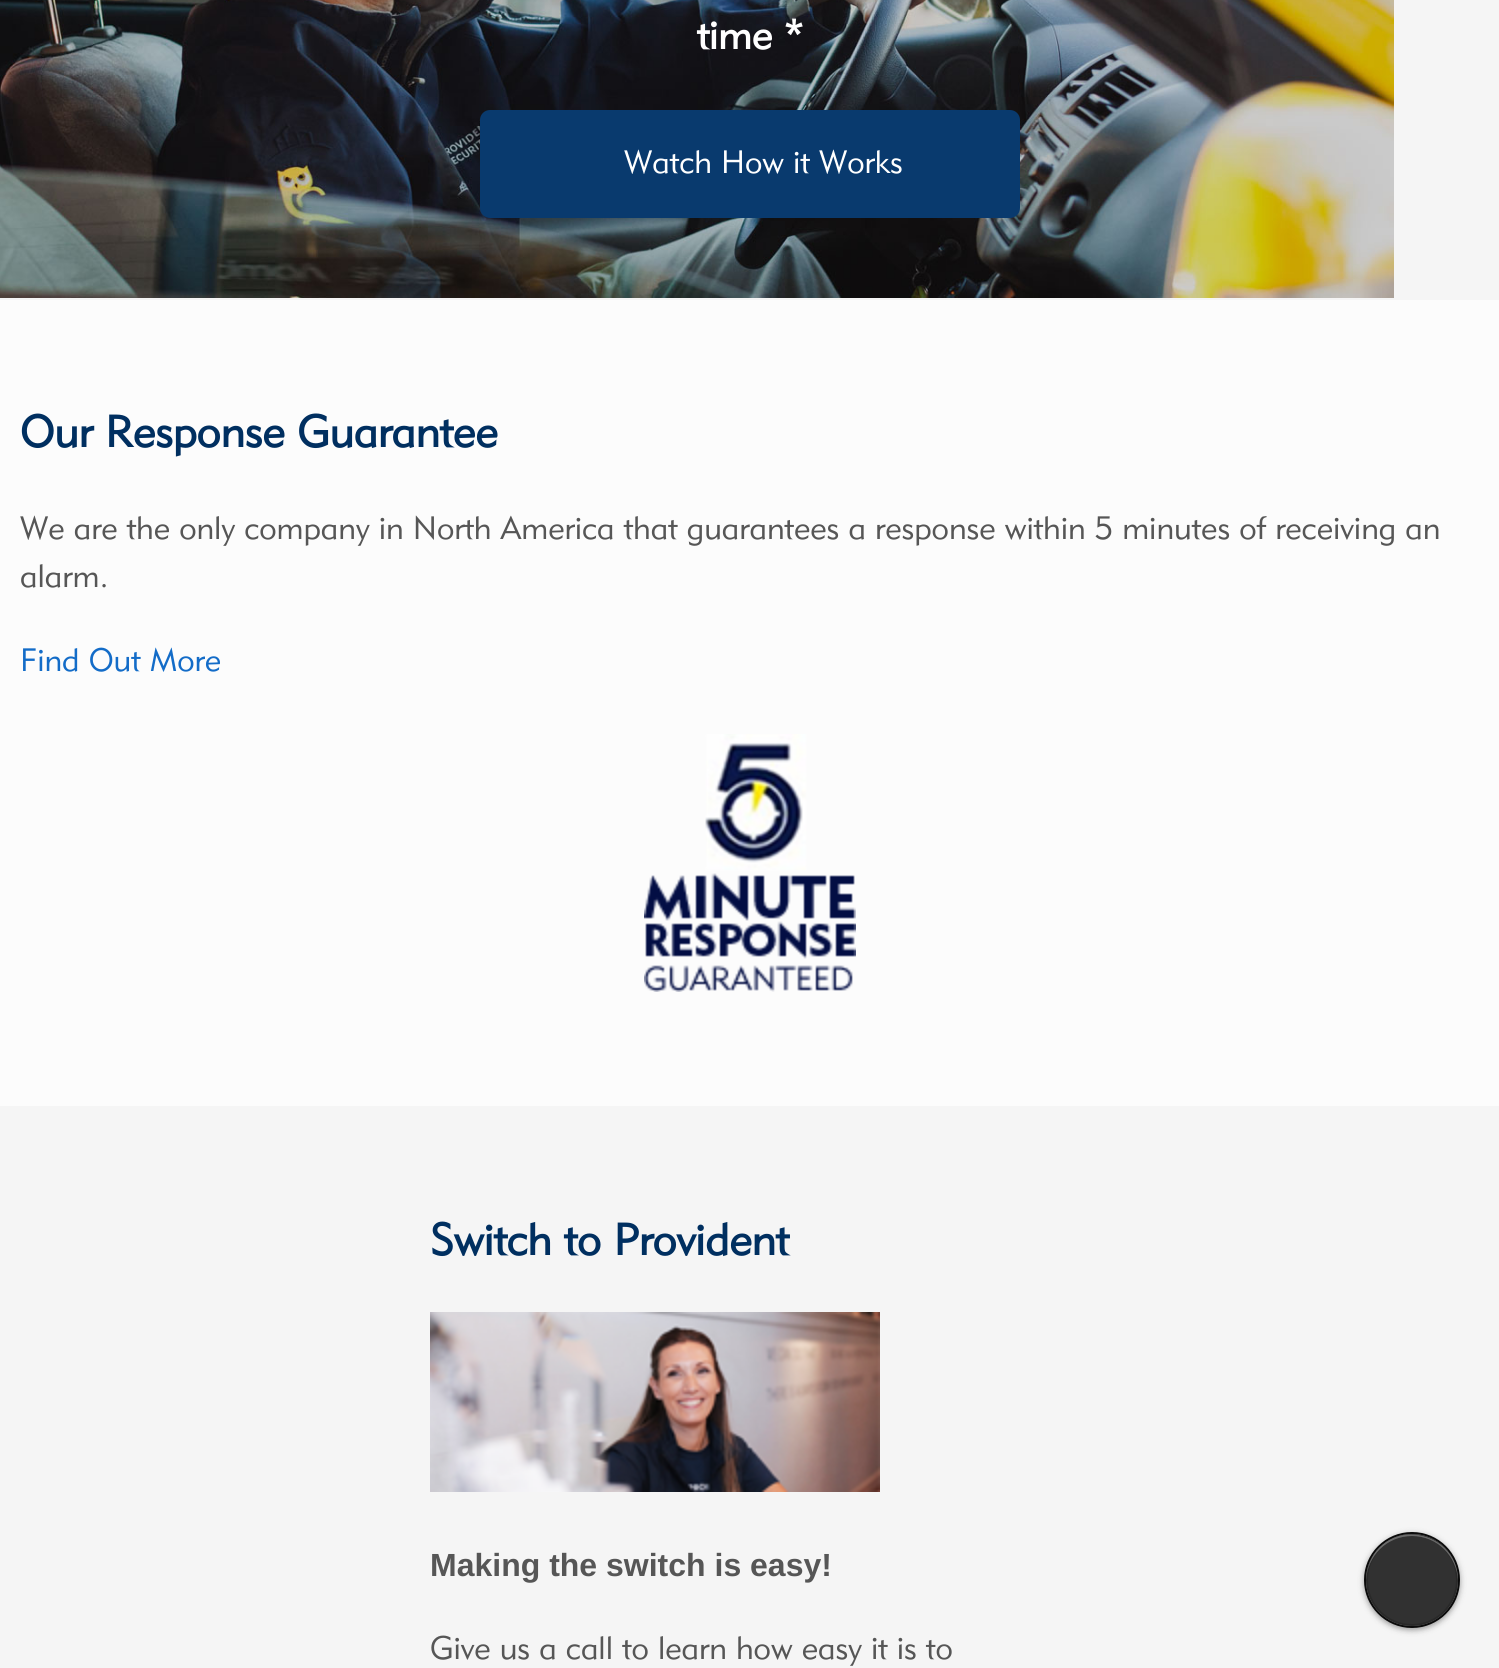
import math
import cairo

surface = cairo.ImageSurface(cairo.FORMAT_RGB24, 1499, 1668)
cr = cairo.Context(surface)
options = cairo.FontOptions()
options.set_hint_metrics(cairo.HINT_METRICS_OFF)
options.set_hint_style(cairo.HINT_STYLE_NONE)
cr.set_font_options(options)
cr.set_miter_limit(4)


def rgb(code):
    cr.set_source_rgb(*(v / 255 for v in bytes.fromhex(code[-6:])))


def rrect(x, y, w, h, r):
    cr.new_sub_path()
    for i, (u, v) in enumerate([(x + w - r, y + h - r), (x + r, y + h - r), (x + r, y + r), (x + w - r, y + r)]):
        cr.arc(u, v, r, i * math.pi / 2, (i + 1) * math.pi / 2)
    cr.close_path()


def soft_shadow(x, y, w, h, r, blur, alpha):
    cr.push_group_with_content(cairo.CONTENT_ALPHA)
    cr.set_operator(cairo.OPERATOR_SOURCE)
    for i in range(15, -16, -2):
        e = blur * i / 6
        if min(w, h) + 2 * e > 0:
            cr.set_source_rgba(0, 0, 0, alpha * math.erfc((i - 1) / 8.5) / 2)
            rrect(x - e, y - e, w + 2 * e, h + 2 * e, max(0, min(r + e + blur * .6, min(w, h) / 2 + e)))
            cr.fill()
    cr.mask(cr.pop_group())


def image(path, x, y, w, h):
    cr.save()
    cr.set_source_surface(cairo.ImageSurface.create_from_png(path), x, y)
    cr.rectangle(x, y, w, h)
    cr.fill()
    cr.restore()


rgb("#f5f5f5")
cr.paint()
image("img/1.png", 0, 0, 1394, 298)
rgb("#093a6e")
rrect(480, 110, 540, 108, 10)
cr.fill()
rgb("#fcfcfc")
cr.rectangle(0, 300, 1499, 806)
cr.fill()
image("img/2.png", 644, 734, 212, 258)
image("img/3.png", 430, 1312, 450, 180)
rgb("#0b0b0b")
soft_shadow(1364, 1534, 96, 96, 48, 3, 0.4)
rgb("#313131")
cr.arc(1412, 1580, 46, 0, 2 * math.pi)
cr.fill()
cr.set_source_rgba(1, 1, 1, 0.4)
cr.new_path()
cr.move_to(1412, 1536)
cr.curve_to(1437, 1536, 1457, 1556, 1458, 1581)
cr.curve_to(1459, 1536, 1399, 1517, 1374, 1554)
cr.curve_to(1369, 1562, 1366, 1572, 1366, 1581)
cr.curve_to(1367, 1556, 1387, 1536, 1412, 1536)
cr.close_path()
cr.fill()
cr.arc(1412, 1580, 45, 0, 2 * math.pi)
cr.set_source_rgba(0.043, 0.043, 0.043, 0.2)
cr.stroke()
cr.arc(1412, 1580, 47, 0, 2 * math.pi)
rgb("#0b0b0b")
cr.stroke()
cr.select_font_face("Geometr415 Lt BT", cairo.FONT_SLANT_NORMAL, cairo.FONT_WEIGHT_BOLD)
cr.set_font_size(40)
rgb("#ffffff")
cr.move_to(697, 49)
cr.show_text("time *")
cr.select_font_face("Geometr415 Lt BT")
cr.set_font_size(32)
cr.move_to(624, 173)
cr.show_text("Watch How it Works")
cr.select_font_face("Geometr415 Lt BT", cairo.FONT_SLANT_NORMAL, cairo.FONT_WEIGHT_BOLD)
cr.set_font_size(44)
rgb("#002f60")
cr.move_to(20, 447)
cr.show_text("Our Response Guarantee")
cr.select_font_face("Geometr415 Lt BT")
cr.set_font_size(32)
rgb("#565656")
cr.move_to(20, 539)
cr.show_text("We are the only company in North America that guarantees a response within 5 minutes of receiving an")
cr.move_to(20, 587)
cr.show_text("alarm.")
rgb("#136cc8")
cr.move_to(20, 671)
cr.show_text("Find Out More")
cr.select_font_face("Geometr415 Lt BT", cairo.FONT_SLANT_NORMAL, cairo.FONT_WEIGHT_BOLD)
cr.set_font_size(44)
rgb("#002f60")
cr.move_to(430, 1255)
cr.show_text("Switch to Provident")
cr.select_font_face("Liberation Sans", cairo.FONT_SLANT_NORMAL, cairo.FONT_WEIGHT_BOLD)
cr.set_font_size(32)
rgb("#565656")
cr.move_to(430, 1576)
cr.show_text("Making the switch is easy!")
cr.select_font_face("Geometr415 Lt BT")
cr.move_to(430, 1659)
cr.show_text("Give us a call to learn how easy it is to")
surface.write_to_png("page.png")
